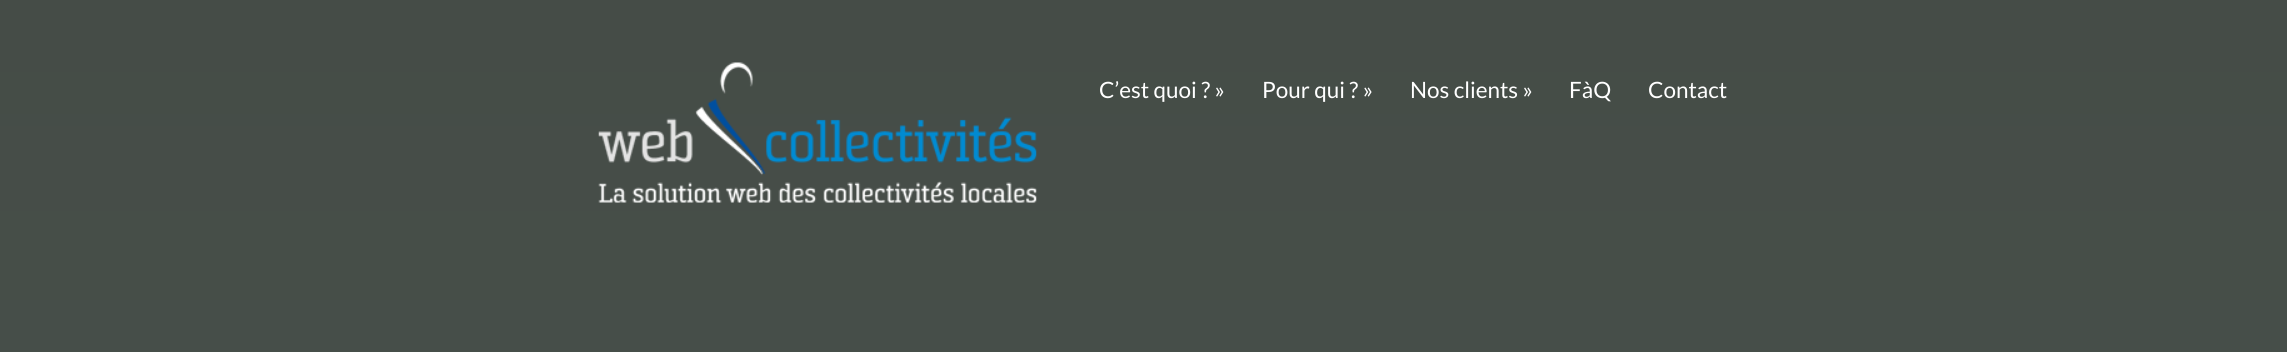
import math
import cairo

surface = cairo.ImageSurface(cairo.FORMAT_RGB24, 2287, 352)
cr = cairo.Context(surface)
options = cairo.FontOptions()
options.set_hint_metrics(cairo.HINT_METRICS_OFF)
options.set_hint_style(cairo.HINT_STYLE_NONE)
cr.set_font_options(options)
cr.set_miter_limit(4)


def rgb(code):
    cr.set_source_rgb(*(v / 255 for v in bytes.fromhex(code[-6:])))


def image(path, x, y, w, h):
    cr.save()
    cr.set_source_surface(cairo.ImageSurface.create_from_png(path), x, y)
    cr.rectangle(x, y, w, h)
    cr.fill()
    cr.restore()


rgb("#ffffff")
cr.paint()
gradient = cairo.LinearGradient(1144, 0, 1144, 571)
gradient.add_color_stop_rgba(0, 0.271, 0.298, 0.278, 1)
gradient.add_color_stop_rgba(1, 0.278, 0.314, 0.29, 1)
cr.set_source(gradient)
cr.rectangle(0, 0, 2287, 352)
cr.fill()
image("img/1.png", 598, 62, 439, 141)
cr.select_font_face("Lato")
cr.set_font_size(22.5)
rgb("#ffffff")
for x, y, s in [
    (1099, 98, "C’est quoi ? »"),
    (1262, 98, "Pour qui ? »"),
    (1410, 98, "Nos clients »"),
    (1569, 98, "FàQ"),
    (1648, 98, "Contact"),
]:
    cr.move_to(x, y)
    cr.show_text(s)
surface.write_to_png("page.png")
